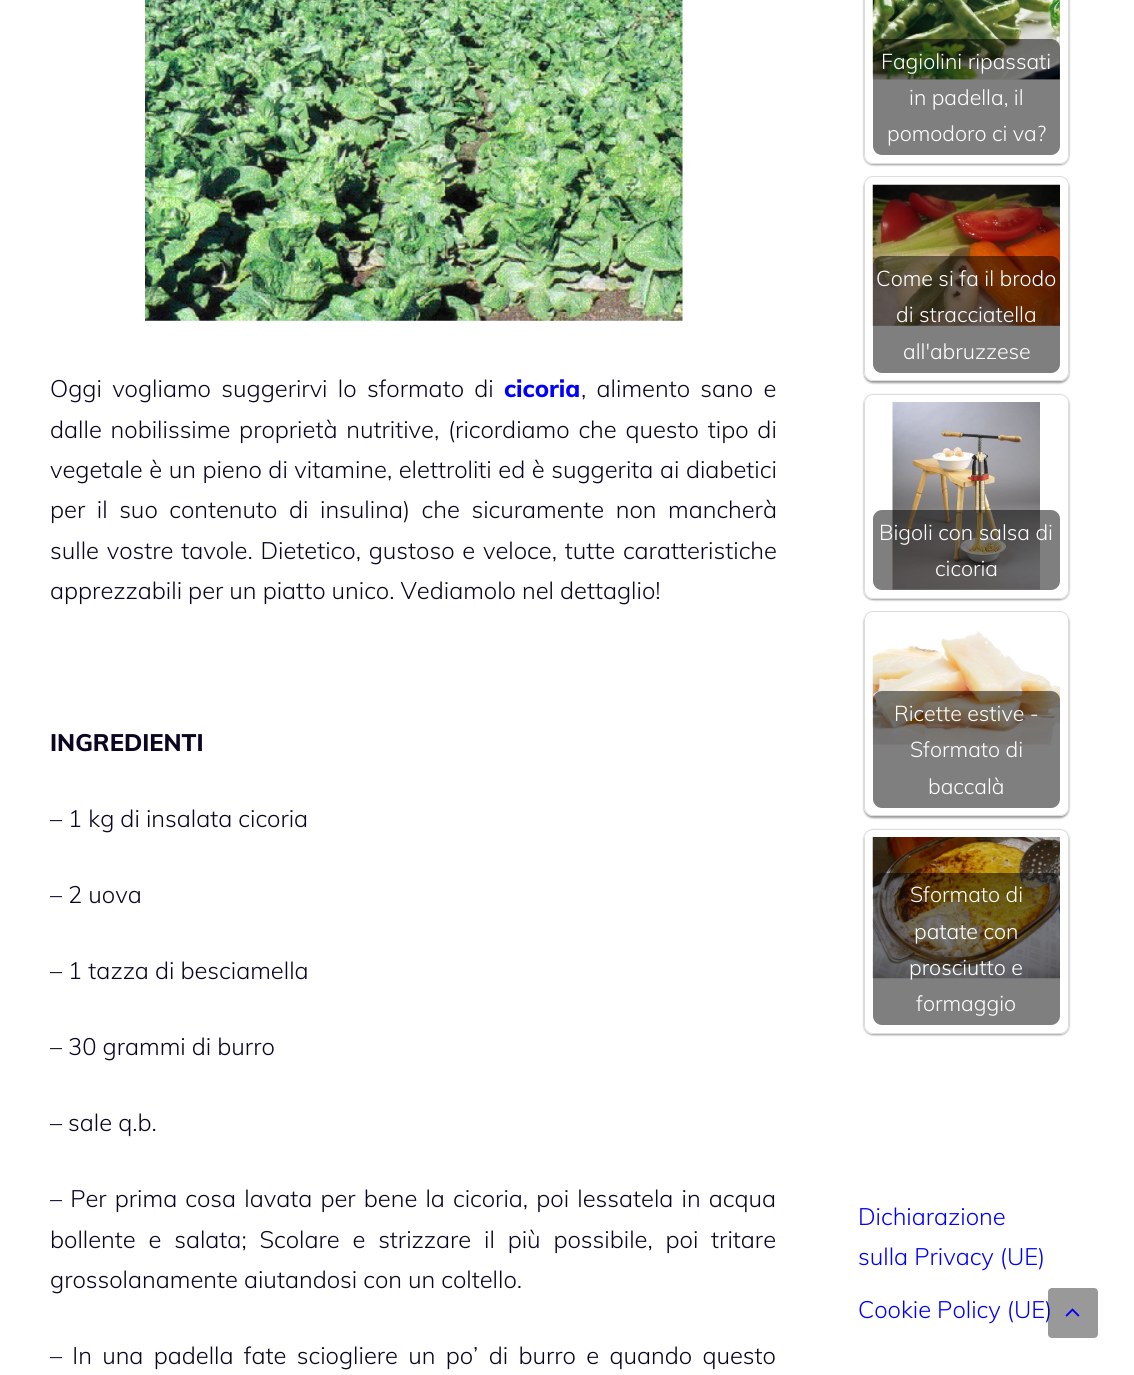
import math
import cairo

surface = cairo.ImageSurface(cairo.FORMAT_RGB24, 1134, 1375)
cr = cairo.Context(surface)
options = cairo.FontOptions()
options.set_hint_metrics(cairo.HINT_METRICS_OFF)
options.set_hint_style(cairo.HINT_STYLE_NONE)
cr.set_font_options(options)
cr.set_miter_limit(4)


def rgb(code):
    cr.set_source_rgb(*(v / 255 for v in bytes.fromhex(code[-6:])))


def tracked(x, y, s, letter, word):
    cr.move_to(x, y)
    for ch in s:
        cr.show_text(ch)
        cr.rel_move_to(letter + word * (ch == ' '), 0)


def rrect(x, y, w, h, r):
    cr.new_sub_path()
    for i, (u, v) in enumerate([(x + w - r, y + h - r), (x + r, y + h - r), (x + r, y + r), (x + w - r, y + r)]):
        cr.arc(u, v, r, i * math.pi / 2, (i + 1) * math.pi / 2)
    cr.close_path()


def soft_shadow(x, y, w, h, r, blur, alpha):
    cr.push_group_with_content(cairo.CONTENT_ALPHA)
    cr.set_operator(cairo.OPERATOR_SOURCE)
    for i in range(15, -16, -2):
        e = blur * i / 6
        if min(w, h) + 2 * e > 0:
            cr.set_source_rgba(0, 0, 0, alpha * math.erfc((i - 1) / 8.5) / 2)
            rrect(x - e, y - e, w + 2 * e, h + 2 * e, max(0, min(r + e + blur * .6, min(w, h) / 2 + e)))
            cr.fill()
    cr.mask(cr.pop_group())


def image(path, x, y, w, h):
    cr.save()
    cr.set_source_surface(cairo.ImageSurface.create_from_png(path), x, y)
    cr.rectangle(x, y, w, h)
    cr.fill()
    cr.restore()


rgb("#ffffff")
cr.paint()
image("img/1.png", 145, 0, 538, 321)
cr.save()
cr.set_fill_rule(cairo.FILL_RULE_EVEN_ODD)
cr.new_path()
cr.move_to(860, 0)
cr.line_to(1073, 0)
cr.line_to(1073, 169)
cr.line_to(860, 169)
cr.close_path()
cr.move_to(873, -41)
cr.line_to(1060, -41)
cr.curve_to(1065, -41, 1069, -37, 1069, -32)
cr.line_to(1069, 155)
cr.curve_to(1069, 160, 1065, 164, 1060, 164)
cr.line_to(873, 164)
cr.curve_to(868, 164, 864, 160, 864, 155)
cr.line_to(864, -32)
cr.curve_to(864, -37, 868, -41, 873, -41)
cr.close_path()
cr.clip()
rgb("#000000")
soft_shadow(864, -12, 205, 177, 9, 1, 0.4)
cr.restore()
rrect(864.5, -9.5, 204, 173, 8.5)
rgb("#dddddd")
cr.set_line_width(1)
cr.stroke()
image("img/2.png", 872, 0, 188, 80)
cr.set_source_rgba(0, 0, 0, 0.5)
rrect(873, 39, 187, 116, 9)
cr.fill()
cr.save()
cr.set_fill_rule(cairo.FILL_RULE_EVEN_ODD)
cr.new_path()
cr.move_to(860, 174)
cr.line_to(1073, 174)
cr.line_to(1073, 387)
cr.line_to(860, 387)
cr.close_path()
cr.move_to(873, 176)
cr.line_to(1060, 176)
cr.curve_to(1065, 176, 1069, 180, 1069, 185)
cr.line_to(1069, 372)
cr.curve_to(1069, 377, 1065, 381, 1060, 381)
cr.line_to(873, 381)
cr.curve_to(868, 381, 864, 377, 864, 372)
cr.line_to(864, 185)
cr.curve_to(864, 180, 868, 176, 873, 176)
cr.close_path()
cr.clip()
rgb("#000000")
soft_shadow(864, 178, 205, 205, 9, 1, 0.4)
cr.restore()
rrect(864.5, 176.5, 204, 204, 8.5)
rgb("#dddddd")
cr.stroke()
image("img/3.png", 872, 184, 188, 142)
cr.set_source_rgba(0, 0, 0, 0.5)
rrect(873, 256, 187, 117, 9)
cr.fill()
cr.save()
cr.set_fill_rule(cairo.FILL_RULE_EVEN_ODD)
cr.new_path()
cr.move_to(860, 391)
cr.line_to(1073, 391)
cr.line_to(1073, 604)
cr.line_to(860, 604)
cr.close_path()
cr.move_to(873, 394)
cr.line_to(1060, 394)
cr.curve_to(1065, 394, 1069, 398, 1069, 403)
cr.line_to(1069, 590)
cr.curve_to(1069, 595, 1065, 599, 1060, 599)
cr.line_to(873, 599)
cr.curve_to(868, 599, 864, 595, 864, 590)
cr.line_to(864, 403)
cr.curve_to(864, 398, 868, 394, 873, 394)
cr.close_path()
cr.clip()
rgb("#000000")
soft_shadow(864, 395, 205, 205, 9, 1, 0.4)
cr.restore()
rrect(864.5, 394.5, 204, 204, 8.5)
rgb("#dddddd")
cr.stroke()
image("img/4.png", 892, 402, 148, 188)
cr.set_source_rgba(0, 0, 0, 0.5)
rrect(873, 510, 187, 80, 9)
cr.fill()
cr.save()
cr.set_fill_rule(cairo.FILL_RULE_EVEN_ODD)
cr.new_path()
cr.move_to(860, 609)
cr.line_to(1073, 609)
cr.line_to(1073, 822)
cr.line_to(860, 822)
cr.close_path()
cr.move_to(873, 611)
cr.line_to(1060, 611)
cr.curve_to(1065, 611, 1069, 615, 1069, 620)
cr.line_to(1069, 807)
cr.curve_to(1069, 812, 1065, 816, 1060, 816)
cr.line_to(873, 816)
cr.curve_to(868, 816, 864, 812, 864, 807)
cr.line_to(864, 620)
cr.curve_to(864, 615, 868, 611, 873, 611)
cr.close_path()
cr.clip()
rgb("#000000")
soft_shadow(864, 613, 205, 205, 9, 1, 0.4)
cr.restore()
rrect(864.5, 611.5, 204, 204, 8.5)
rgb("#dddddd")
cr.stroke()
image("img/5.png", 872, 631, 188, 114)
cr.set_source_rgba(0, 0, 0, 0.5)
rrect(873, 691, 187, 117, 9)
cr.fill()
cr.save()
cr.set_fill_rule(cairo.FILL_RULE_EVEN_ODD)
cr.new_path()
cr.move_to(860, 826)
cr.line_to(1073, 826)
cr.line_to(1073, 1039)
cr.line_to(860, 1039)
cr.close_path()
cr.move_to(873, 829)
cr.line_to(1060, 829)
cr.curve_to(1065, 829, 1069, 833, 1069, 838)
cr.line_to(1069, 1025)
cr.curve_to(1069, 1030, 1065, 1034, 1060, 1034)
cr.line_to(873, 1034)
cr.curve_to(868, 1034, 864, 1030, 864, 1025)
cr.line_to(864, 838)
cr.curve_to(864, 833, 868, 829, 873, 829)
cr.close_path()
cr.clip()
rgb("#000000")
soft_shadow(864, 830, 205, 205, 9, 1, 0.4)
cr.restore()
rrect(864.5, 829.5, 204, 204, 8.5)
rgb("#dddddd")
cr.stroke()
image("img/6.png", 872, 837, 188, 142)
cr.set_source_rgba(0, 0, 0, 0.5)
rrect(873, 873, 187, 152, 9)
cr.fill()
cr.select_font_face("Muli Light")
cr.set_font_size(23.75)
rgb("#0b0521")
tracked(50, 397, "Oggi vogliamo suggerirvi lo sformato di", 0, 4.25)
cr.select_font_face("Muli ExtraBold")
rgb("#0000ff")
cr.move_to(504, 397)
cr.show_text("cicoria")
cr.select_font_face("Muli Light")
rgb("#0b0521")
tracked(581, 397, ", alimento sano e", 0, 4.25)
tracked(50, 438, "dalle nobilissime proprietà nutritive, (ricordiamo che questo tipo di", 0, 2.75)
tracked(50, 478, "vegetale è un pieno di vitamine, elettroliti ed è suggerita ai diabetici", 0, 0.5)
tracked(50, 518, "per il suo contenuto di insulina) che sicuramente non mancherà", 0, 5.5)
tracked(50, 559, "sulle vostre tavole. Dietetico, gustoso e veloce, tutte caratteristiche", 0, 1.75)
cr.move_to(50, 599)
cr.show_text("apprezzabili per un piatto unico. Vediamolo nel dettaglio!")
cr.select_font_face("Muli ExtraBold")
cr.move_to(50, 751)
cr.show_text("INGREDIENTI")
cr.select_font_face("Muli Light")
for x, y, s in [
    (50, 827, "– 1 kg di insalata cicoria"),
    (50, 903, "– 2 uova"),
    (50, 979, "– 1 tazza di besciamella"),
    (50, 1055, "– 30 grammi di burro"),
    (50, 1131, "– sale q.b."),
]:
    cr.move_to(x, y)
    cr.show_text(s)
tracked(50, 1207, "– Per prima cosa lavata per bene la cicoria, poi lessatela in acqua", 0, 2.1)
tracked(50, 1248, "bollente e salata; Scolare e strizzare il più possibile, poi tritare", 0, 6.75)
cr.move_to(50, 1288)
cr.show_text("grossolanamente aiutandosi con un coltello.")
tracked(50, 1364, "– In una padella fate sciogliere un po’ di burro e quando questo", 0, 4.25)
cr.set_font_size(21.4)
rgb("#ffffff")
for x, y, s in [
    (881, 69, "Fagiolini ripassati"),
    (909, 105, "in padella, il"),
    (887, 141, "pomodoro ci va?"),
    (876, 286, "Come si fa il brodo"),
    (896, 322, "di stracciatella"),
    (903, 359, "all'abruzzese"),
    (879, 540, "Bigoli con salsa di"),
    (935, 576, "cicoria"),
    (894, 721, "Ricette estive -"),
    (910, 757, "Sformato di"),
    (928, 794, "baccalà"),
    (910, 902, "Sformato di"),
    (914, 939, "patate con"),
    (909, 975, "prosciutto e"),
    (916, 1011, "formaggio"),
]:
    cr.move_to(x, y)
    cr.show_text(s)
cr.set_font_size(23.75)
rgb("#0000ff")
for x, y, s in [
    (858, 1225, "Dichiarazione"),
    (858, 1265, "sulla Privacy (UE)"),
    (858, 1318, "Cookie Policy (UE)"),
]:
    cr.move_to(x, y)
    cr.show_text(s)
cr.set_source_rgba(0, 0, 0, 0.4)
rrect(1048, 1288, 50, 50, 4)
cr.fill()
image("img/7.png", 1065, 1308, 15, 9)
surface.write_to_png("page.png")
